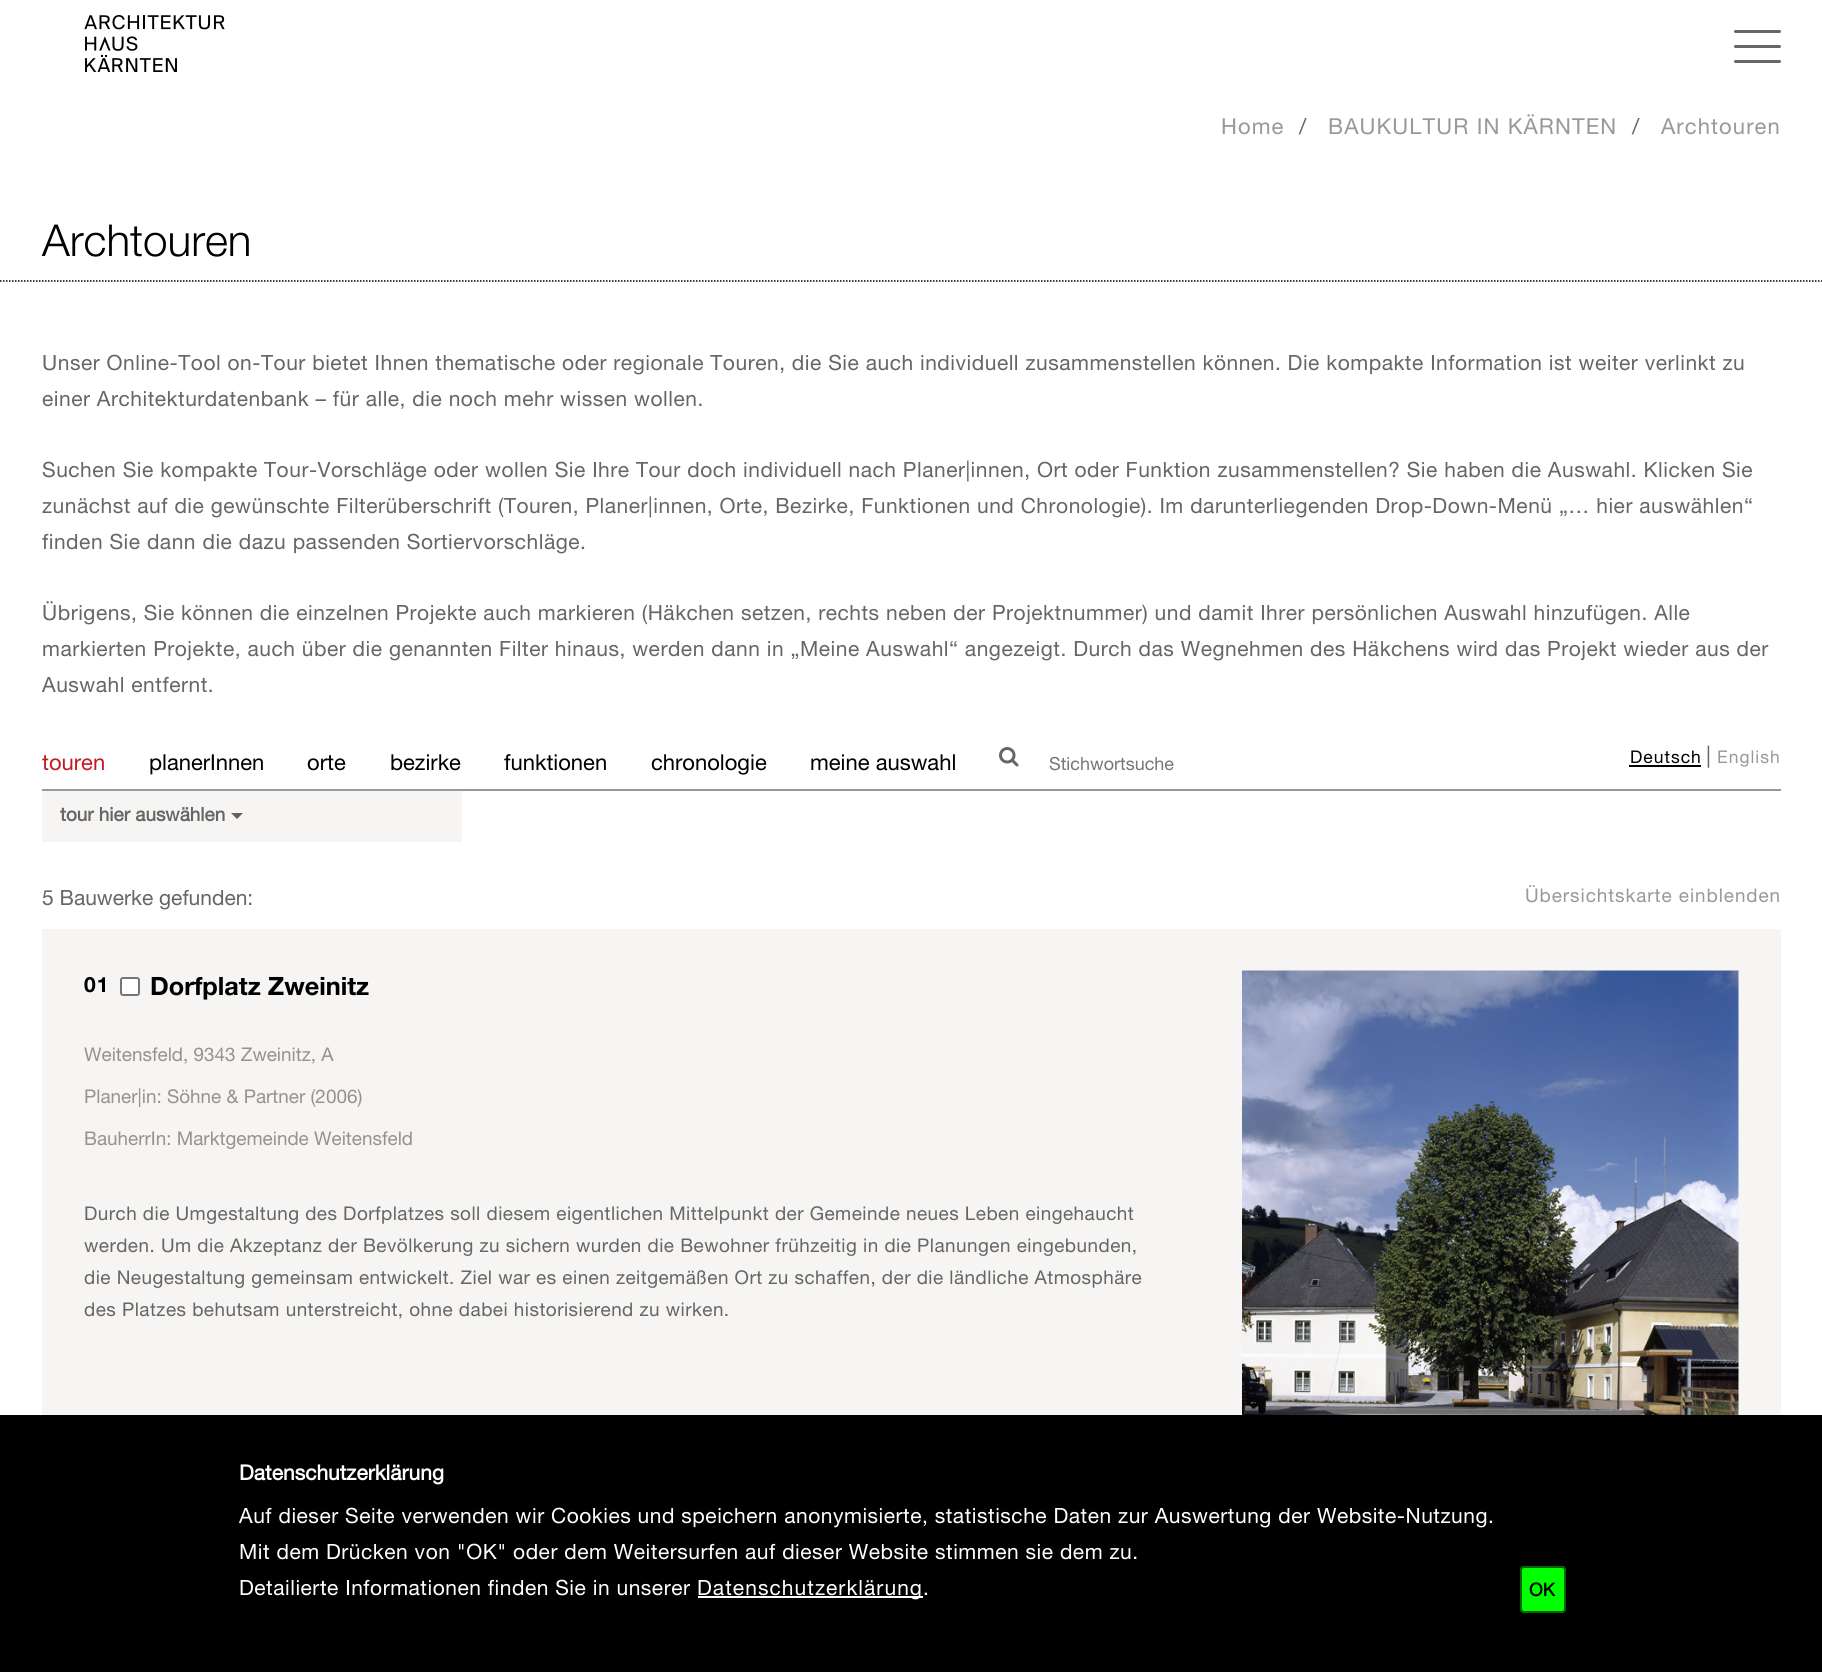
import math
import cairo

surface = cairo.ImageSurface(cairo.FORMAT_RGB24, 1822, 1672)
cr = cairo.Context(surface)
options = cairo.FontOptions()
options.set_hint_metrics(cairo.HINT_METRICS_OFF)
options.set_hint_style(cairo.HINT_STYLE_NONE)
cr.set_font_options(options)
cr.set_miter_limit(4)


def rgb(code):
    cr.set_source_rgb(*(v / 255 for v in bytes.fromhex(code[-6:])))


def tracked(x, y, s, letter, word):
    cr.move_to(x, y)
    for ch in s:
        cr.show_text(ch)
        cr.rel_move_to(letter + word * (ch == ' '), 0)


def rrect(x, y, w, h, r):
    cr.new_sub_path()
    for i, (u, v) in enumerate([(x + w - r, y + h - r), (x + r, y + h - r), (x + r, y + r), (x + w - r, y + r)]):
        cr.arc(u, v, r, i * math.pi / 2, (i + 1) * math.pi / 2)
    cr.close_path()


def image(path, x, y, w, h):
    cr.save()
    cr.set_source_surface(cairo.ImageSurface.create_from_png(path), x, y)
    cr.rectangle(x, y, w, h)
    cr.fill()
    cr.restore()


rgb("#ffffff")
cr.paint()
image("img/1.png", 84, 15, 141, 57)
rgb("#666666")
rrect(1734, 45, 47, 3, 1.5)
cr.fill()
rrect(1734, 30, 47, 3, 1.5)
cr.fill()
rrect(1734, 60, 47, 3, 1.5)
cr.fill()
cr.new_path()
cr.move_to(0, 281)
cr.line_to(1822.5, 281)
rgb("#000000")
cr.set_line_width(1.5)
cr.set_dash([1.5, 1.5])
cr.stroke()
rgb("#999999")
cr.rectangle(42, 789, 1739, 2)
cr.fill()
image("img/2.png", 999, 747, 20, 20)
rgb("#f6f5f4")
cr.rectangle(42, 791, 420, 51)
cr.fill()
rgb("#626262")
cr.new_path()
cr.move_to(231, 813)
cr.line_to(243, 813)
cr.line_to(237, 819)
cr.close_path()
cr.fill()
rgb("#000000")
cr.rectangle(1629, 765, 72, 2)
cr.fill()
rgb("#f6f5f4")
cr.rectangle(42, 929, 1739, 486)
cr.fill()
rgb("#ffffff")
rrect(121, 978, 18, 17, 2)
cr.fill_preserve()
rgb("#767676")
cr.set_line_width(2)
cr.set_dash([])
cr.stroke()
image("img/3.png", 1242, 970, 497, 445)
rgb("#000000")
cr.rectangle(0, 1415, 1822, 257)
cr.fill()
rgb("#ffffff")
cr.rectangle(698, 1596, 225, 2)
cr.fill()
rgb("#00ff00")
rrect(1520, 1566, 46, 47, 4)
cr.fill()
rrect(1521, 1567, 44, 45, 3)
cr.set_source_rgba(0, 0, 0, 0.6)
cr.stroke()
cr.select_font_face("Helvetica Neue")
cr.set_font_size(22)
rgb("#999999")
tracked(1221, 134, "Home", 1.1, 0)
rgb("#666666")
tracked(1299, 134, "/", 1, 0)
rgb("#999999")
tracked(1328, 134, "BAUKULTUR IN KÄRNTEN", 1.1, 0)
rgb("#666666")
tracked(1632, 134, "/", 1, 0)
rgb("#999999")
tracked(1661, 134, "Archtouren", 1.1, 0)
cr.select_font_face("Helvetica Neue Light")
cr.set_font_size(44)
rgb("#000000")
cr.move_to(42, 256)
cr.show_text("Archtouren")
cr.select_font_face("Helvetica Neue")
cr.set_font_size(21)
rgb("#666666")
for x, y, s in [
    (42, 370, "Unser Online-Tool on-Tour bietet Ihnen thematische oder regionale Touren, die Sie auch individuell zusammenstellen können. Die kompakte Information ist weiter verlinkt zu"),
    (42, 406, "einer Architekturdatenbank – für alle, die noch mehr wissen wollen."),
    (42, 477, "Suchen Sie kompakte Tour-Vorschläge oder wollen Sie Ihre Tour doch individuell nach Planer|innen, Ort oder Funktion zusammenstellen? Sie haben die Auswahl. Klicken Sie"),
    (42, 513, "zunächst auf die gewünschte Filterüberschrift (Touren, Planer|innen, Orte, Bezirke, Funktionen und Chronologie). Im darunterliegenden Drop-Down-Menü „… hier auswählen“"),
    (42, 549, "finden Sie dann die dazu passenden Sortiervorschläge."),
    (42, 620, "Übrigens, Sie können die einzelnen Projekte auch markieren (Häkchen setzen, rechts neben der Projektnummer) und damit Ihrer persönlichen Auswahl hinzufügen. Alle"),
    (42, 656, "markierten Projekte, auch über die genannten Filter hinaus, werden dann in „Meine Auswahl“ angezeigt. Durch das Wegnehmen des Häkchens wird das Projekt wieder aus der"),
    (42, 692, "Auswahl entfernt."),
]:
    tracked(x, y, s, 0.52, 0)
cr.set_font_size(22)
rgb("#c11b26")
cr.move_to(42, 770)
cr.show_text("touren")
rgb("#000000")
for x, y, s in [
    (149, 770, "planerInnen"),
    (307, 770, "orte"),
    (390, 770, "bezirke"),
    (504, 770, "funktionen"),
    (651, 770, "chronologie"),
    (810, 770, "meine auswahl"),
]:
    cr.move_to(x, y)
    cr.show_text(s)
cr.set_font_size(18)
rgb("#777777")
cr.move_to(1049, 770)
cr.show_text("Stichwortsuche")
cr.select_font_face("Helvetica Neue", cairo.FONT_SLANT_NORMAL, cairo.FONT_WEIGHT_BOLD)
cr.set_font_size(18.9)
rgb("#666666")
cr.move_to(60, 821)
cr.show_text("tour hier auswählen")
cr.select_font_face("Helvetica Neue")
cr.set_font_size(17.5)
rgb("#000000")
tracked(1630, 763, "Deutsch", 1, 0)
cr.set_font_size(22)
rgb("#666666")
tracked(1706, 763, "|", 1, 0)
cr.set_font_size(17.5)
rgb("#999999")
tracked(1717, 763, "English", 1, 0)
cr.set_font_size(21)
rgb("#666666")
cr.move_to(42, 905)
cr.show_text("5 Bauwerke gefunden:")
cr.set_font_size(18.9)
rgb("#999999")
tracked(1525, 902, "Übersichtskarte einblenden", 0.95, 0)
cr.select_font_face("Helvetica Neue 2", cairo.FONT_SLANT_NORMAL, cairo.FONT_WEIGHT_BOLD)
cr.set_font_size(21)
rgb("#000000")
tracked(84, 992, "01", 1.05, 0)
cr.set_font_size(25.25)
cr.move_to(150, 995)
cr.show_text("Dorfplatz Zweinitz")
cr.select_font_face("Helvetica Neue")
cr.set_font_size(18.9)
rgb("#949392")
for x, y, s in [
    (84, 1061, "Weitensfeld, 9343 Zweinitz, A"),
    (84, 1103, "Planer|in: Söhne & Partner (2006)"),
    (84, 1145, "BauherrIn: Marktgemeinde Weitensfeld"),
]:
    cr.move_to(x, y)
    cr.show_text(s)
rgb("#666666")
for x, y, s in [
    (84, 1220, "Durch die Umgestaltung des Dorfplatzes soll diesem eigentlichen Mittelpunkt der Gemeinde neues Leben eingehaucht"),
    (84, 1252, "werden. Um die Akzeptanz der Bevölkerung zu sichern wurden die Bewohner frühzeitig in die Planungen eingebunden,"),
    (84, 1284, "die Neugestaltung gemeinsam entwickelt. Ziel war es einen zeitgemäßen Ort zu schaffen, der die ländliche Atmosphäre"),
    (84, 1316, "des Platzes behutsam unterstreicht, ohne dabei historisierend zu wirken."),
]:
    tracked(x, y, s, 0.47, 0)
cr.select_font_face("Helvetica Neue", cairo.FONT_SLANT_NORMAL, cairo.FONT_WEIGHT_BOLD)
cr.set_font_size(21)
rgb("#ffffff")
cr.move_to(239, 1480)
cr.show_text("Datenschutzerklärung")
cr.select_font_face("Helvetica Neue")
for x, y, s in [
    (239, 1523, "Auf dieser Seite verwenden wir Cookies und speichern anonymisierte, statistische Daten zur Auswertung der Website-Nutzung."),
    (239, 1559, "Mit dem Drücken von \"OK\" oder dem Weitersurfen auf dieser Website stimmen sie dem zu."),
    (239, 1595, "Detailierte Informationen finden Sie in unserer"),
]:
    tracked(x, y, s, 0.52, 0)
tracked(697, 1595, "Datenschutzerklärung", 1.05, 0)
tracked(923, 1595, ".", 0.52, 0)
cr.select_font_face("Helvetica Neue", cairo.FONT_SLANT_NORMAL, cairo.FONT_WEIGHT_BOLD)
cr.set_font_size(18)
rgb("#000000")
cr.move_to(1529, 1596)
cr.show_text("OK")
surface.write_to_png("page.png")
